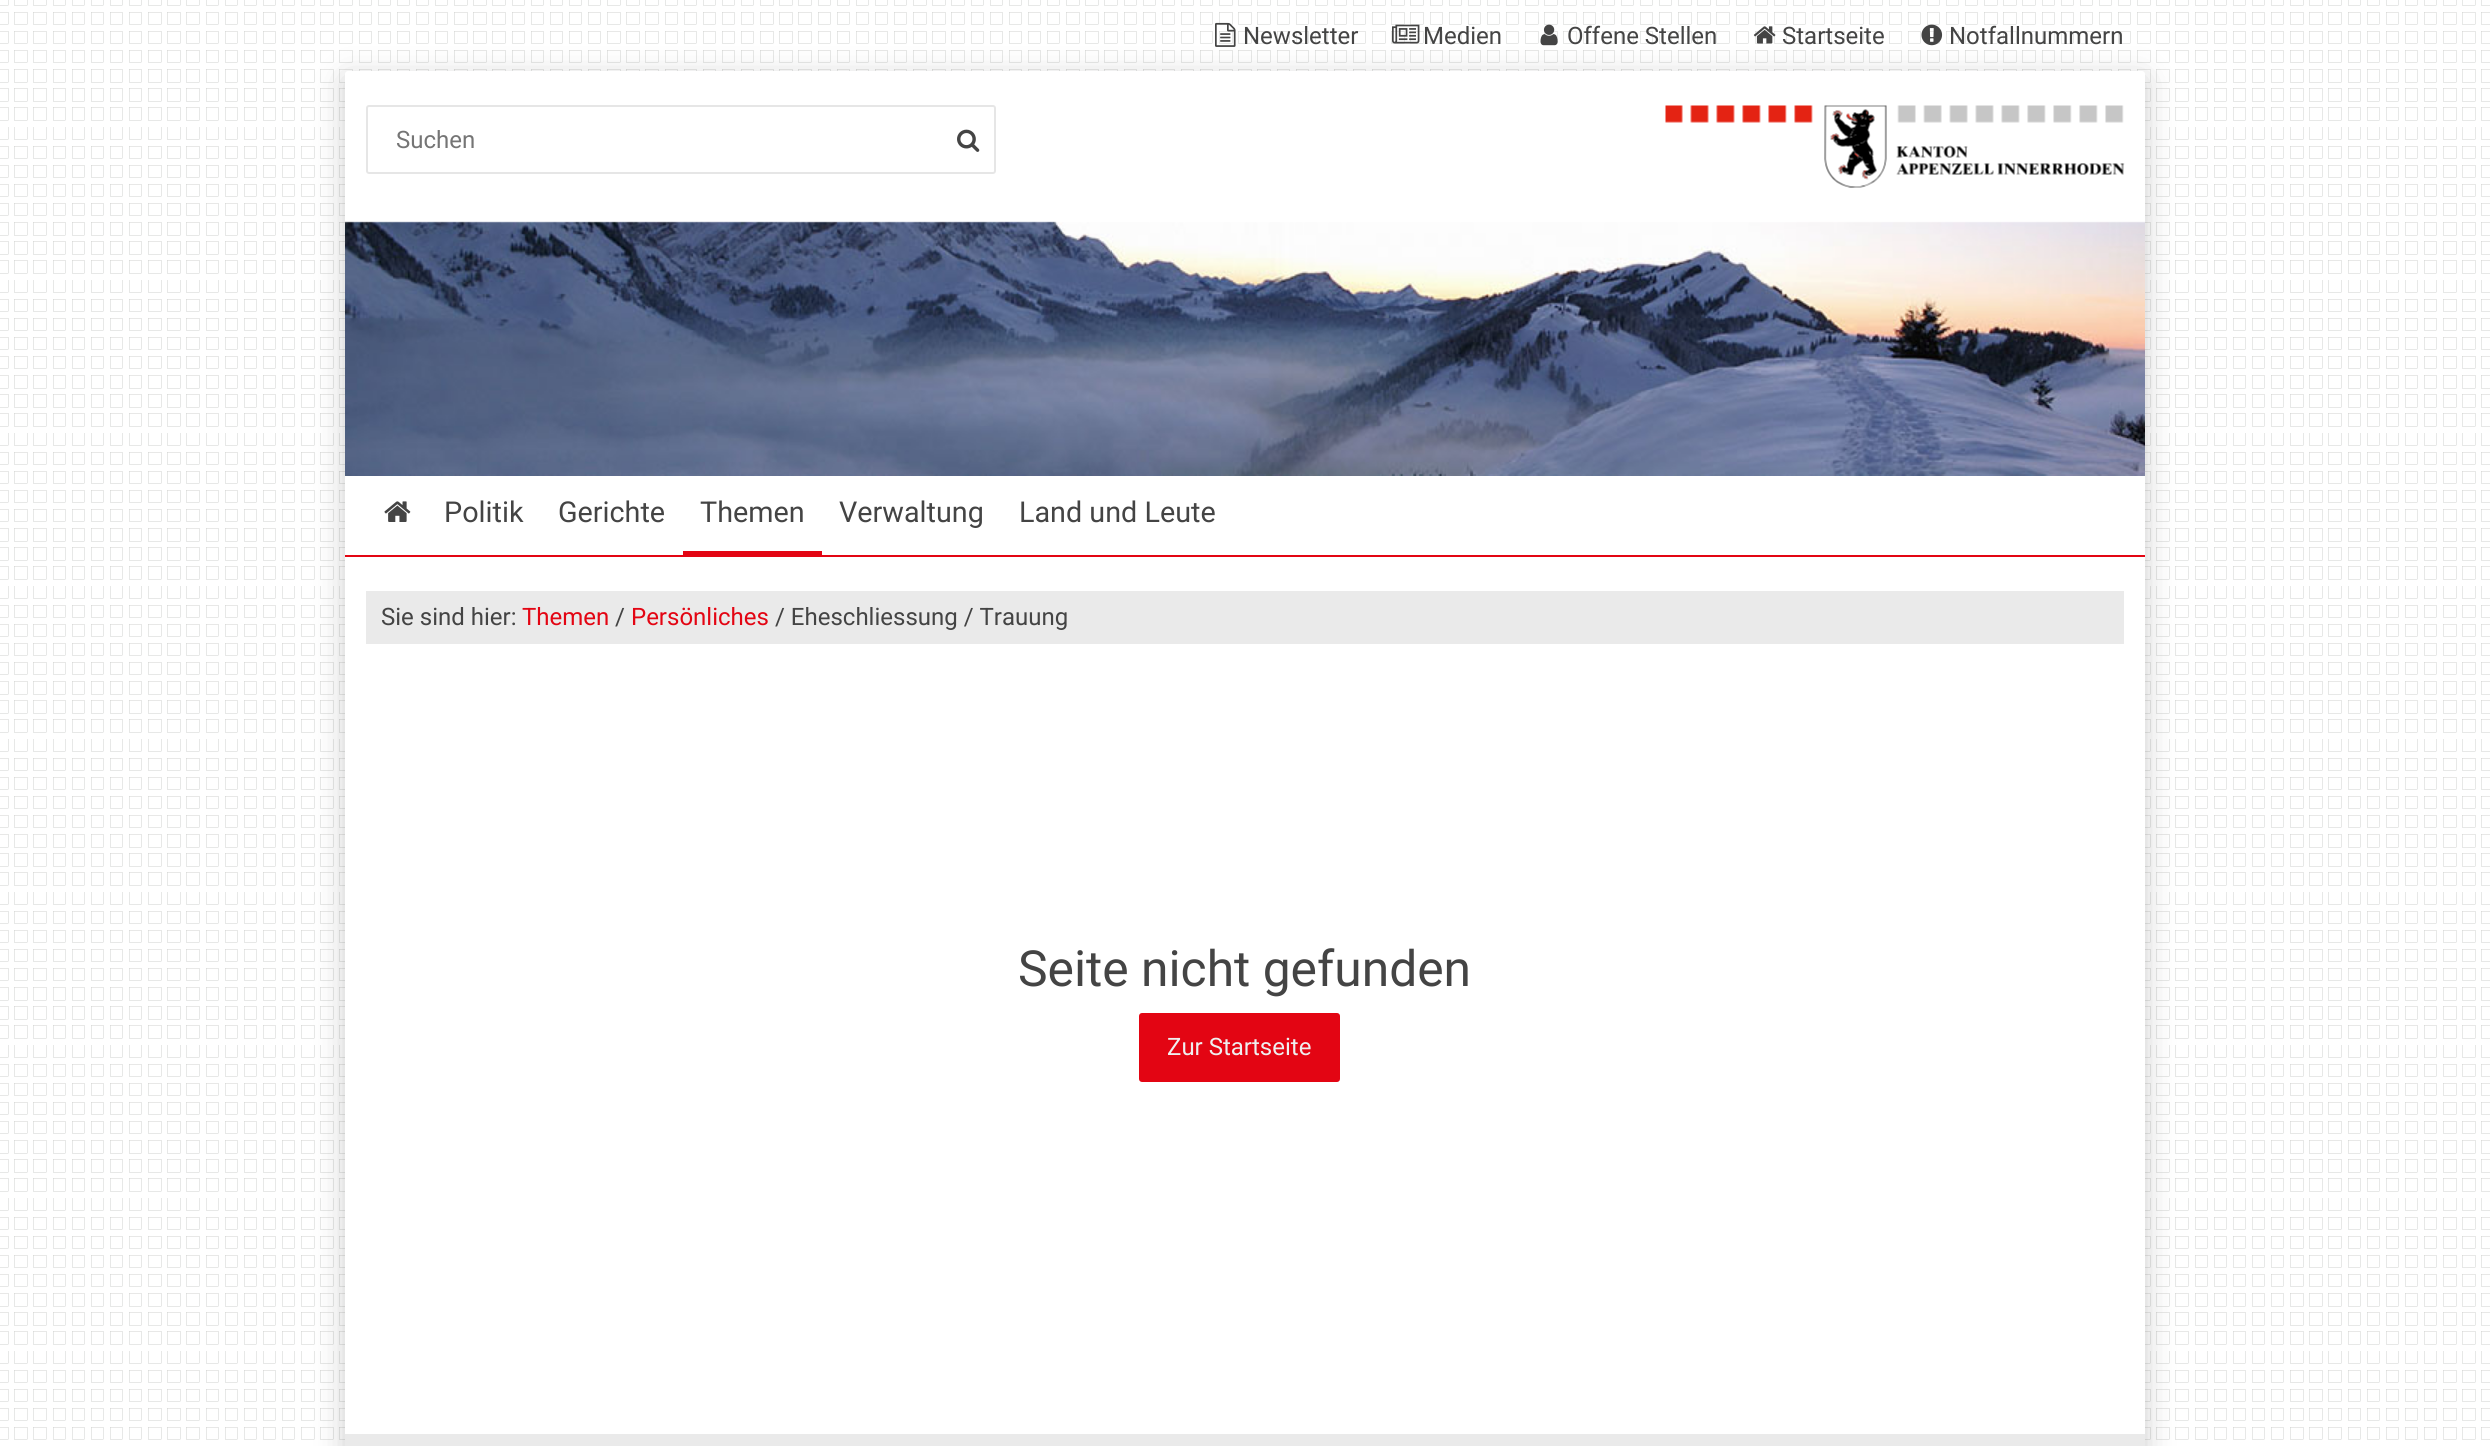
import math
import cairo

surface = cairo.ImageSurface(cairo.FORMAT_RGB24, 2490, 1446)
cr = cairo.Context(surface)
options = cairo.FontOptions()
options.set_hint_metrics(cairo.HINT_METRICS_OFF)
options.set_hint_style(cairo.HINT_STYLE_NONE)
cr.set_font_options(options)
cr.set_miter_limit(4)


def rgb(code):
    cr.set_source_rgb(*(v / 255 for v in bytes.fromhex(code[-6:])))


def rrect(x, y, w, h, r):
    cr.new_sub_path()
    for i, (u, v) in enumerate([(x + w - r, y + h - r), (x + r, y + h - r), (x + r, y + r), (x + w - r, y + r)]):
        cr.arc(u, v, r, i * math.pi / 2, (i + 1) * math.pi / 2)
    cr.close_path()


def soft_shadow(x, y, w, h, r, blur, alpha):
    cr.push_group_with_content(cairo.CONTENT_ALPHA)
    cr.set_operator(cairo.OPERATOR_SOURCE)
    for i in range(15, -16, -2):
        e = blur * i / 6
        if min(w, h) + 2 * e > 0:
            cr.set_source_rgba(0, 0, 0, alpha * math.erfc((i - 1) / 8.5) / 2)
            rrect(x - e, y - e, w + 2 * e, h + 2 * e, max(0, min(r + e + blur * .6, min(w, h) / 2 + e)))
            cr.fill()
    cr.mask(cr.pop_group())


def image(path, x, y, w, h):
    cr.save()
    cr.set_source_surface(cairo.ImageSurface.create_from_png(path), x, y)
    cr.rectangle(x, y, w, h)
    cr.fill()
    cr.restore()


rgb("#ffffff")
cr.paint()
image("img/1.png", 0, 0, 2490, 1440)
image("img/2.png", 1215, 22, 21, 25)
image("img/3.png", 1392, 24, 28, 20)
image("img/4.png", 1540, 24, 18, 22)
image("img/5.png", 1753, 26, 23, 18)
image("img/6.png", 1921, 24, 22, 22)
rgb("#000000")
soft_shadow(345, 78, 1800, 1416, 3, 15, 0.2)
rgb("#ffffff")
rrect(345, 71, 1800, 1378, 3)
cr.fill()
rrect(367, 106, 628, 67, 2)
rgb("#e6e6e6")
cr.stroke()
image("img/7.png", 957, 129, 23, 23)
image("img/8.png", 1665, 105, 460, 83)
rgb("#e30513")
cr.rectangle(345, 555, 1800, 2)
cr.fill()
image("img/9.png", 345, 221, 1800, 255)
image("img/10.png", 384, 501, 27, 21)
cr.rectangle(683, 551, 139, 4)
cr.fill()
rgb("#eaeaea")
cr.rectangle(366, 591, 1758, 53)
cr.fill()
rgb("#e30513")
rrect(1139, 1013, 201, 69, 3)
cr.fill()
rgb("#eaeaea")
cr.rectangle(345, 1434, 1800, 12)
cr.fill()
cr.select_font_face("Roboto")
cr.set_font_size(24)
rgb("#444444")
for x, y, s in [
    (1243, 44, "Newsletter"),
    (1423, 44, "Medien"),
    (1567, 44, "Offene Stellen"),
    (1782, 44, "Startseite"),
    (1949, 44, "Notfallnummern"),
]:
    cr.move_to(x, y)
    cr.show_text(s)
rgb("#757575")
cr.move_to(396, 148)
cr.show_text("Suchen")
cr.set_font_size(28.75)
rgb("#444444")
for x, y, s in [
    (444, 522, "Politik"),
    (558, 522, "Gerichte"),
    (700, 522, "Themen"),
    (839, 522, "Verwaltung"),
    (1019, 522, "Land und Leute"),
]:
    cr.move_to(x, y)
    cr.show_text(s)
cr.set_font_size(24)
cr.move_to(381, 625)
cr.show_text("Sie sind hier:")
rgb("#e30513")
cr.move_to(522, 625)
cr.show_text("Themen")
rgb("#444444")
cr.move_to(615, 625)
cr.show_text("/")
rgb("#e30513")
cr.move_to(631, 625)
cr.show_text("Persönliches")
rgb("#444444")
cr.move_to(775, 625)
cr.show_text("/ Eheschliessung / Trauung")
cr.set_font_size(49.75)
cr.move_to(1018, 986)
cr.show_text("Seite nicht gefunden")
cr.set_font_size(24)
rgb("#efefef")
cr.move_to(1167, 1055)
cr.show_text("Zur Startseite")
surface.write_to_png("page.png")
